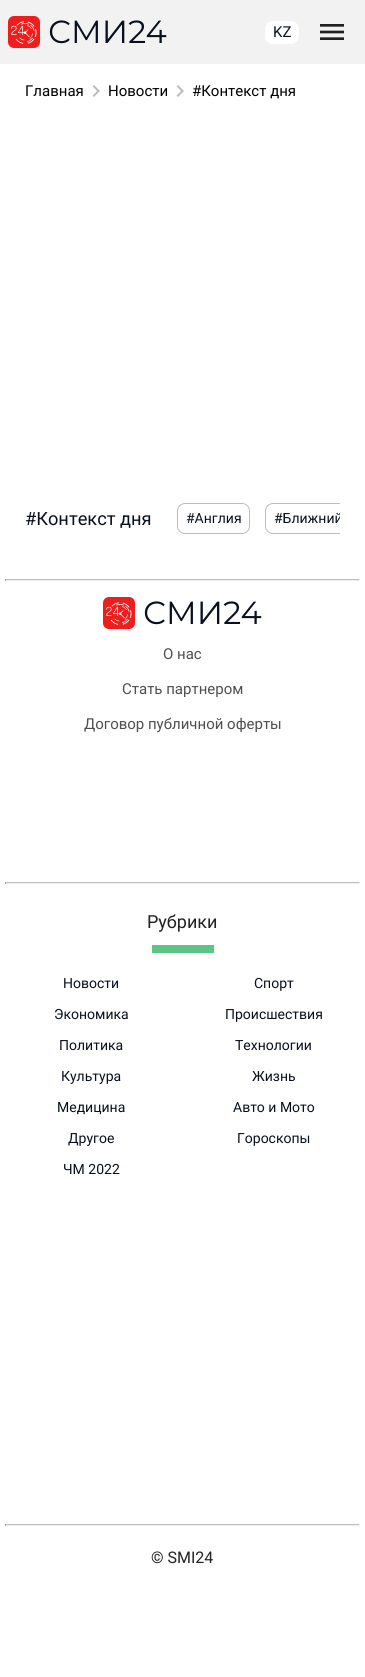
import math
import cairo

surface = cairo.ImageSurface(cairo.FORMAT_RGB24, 365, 1677)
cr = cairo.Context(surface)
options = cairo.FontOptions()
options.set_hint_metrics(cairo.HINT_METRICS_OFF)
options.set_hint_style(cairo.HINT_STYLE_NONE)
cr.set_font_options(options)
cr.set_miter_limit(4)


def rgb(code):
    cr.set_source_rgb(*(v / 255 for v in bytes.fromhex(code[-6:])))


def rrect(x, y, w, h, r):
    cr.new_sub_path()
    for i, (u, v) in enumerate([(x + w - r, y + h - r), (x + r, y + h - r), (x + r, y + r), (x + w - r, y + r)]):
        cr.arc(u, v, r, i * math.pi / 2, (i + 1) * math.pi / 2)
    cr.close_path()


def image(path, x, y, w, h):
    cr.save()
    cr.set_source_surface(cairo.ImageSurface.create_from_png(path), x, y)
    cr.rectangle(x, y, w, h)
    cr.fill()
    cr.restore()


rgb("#ffffff")
cr.paint()
rgb("#f2f2f2")
cr.rectangle(0, 0, 365, 64)
cr.fill()
image("img/1.png", 8, 16, 159, 32)
rgb("#ffffff")
rrect(265, 21, 34, 23, 8)
cr.fill()
image("img/2.png", 320, 24, 24, 16)
image("img/3.png", 92, 85, 8, 12)
image("img/3.png", 176, 85, 8, 12)
rrect(177.5, 503.5, 72, 30, 7.5)
rgb("#bdbdbd")
cr.set_line_width(1)
cr.stroke()
cr.save()
cr.rectangle(177, 503, 163, 31)
cr.clip()
rrect(265.5, 503.5, 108, 30, 7.5)
cr.stroke()
cr.restore()
for x, y, w, h, color in [
    (5, 579, 355, 1, "#bdbdbd"),
    (359, 579, 1, 2, "#eeeeee"),
    (5, 580, 355, 1, "#eeeeee"),
    (5, 579, 1, 2, "#9f9f9f"),
]:
    rgb(color)
    cr.rectangle(x, y, w, h)
    cr.fill()
image("img/4.png", 103, 597, 159, 32)
for x, y, w, h, color in [
    (5, 882, 355, 1, "#bdbdbd"),
    (359, 882, 1, 2, "#eeeeee"),
    (5, 883, 355, 1, "#eeeeee"),
    (5, 882, 1, 2, "#9f9f9f"),
    (152, 945, 62, 8, "#5ec484"),
    (5, 1524, 355, 1, "#bdbdbd"),
    (359, 1524, 1, 2, "#eeeeee"),
    (5, 1525, 355, 1, "#eeeeee"),
    (5, 1524, 1, 2, "#9f9f9f"),
]:
    rgb(color)
    cr.rectangle(x, y, w, h)
    cr.fill()
cr.select_font_face("Roboto")
cr.set_font_size(15)
rgb("#09101d")
cr.move_to(273, 37)
cr.show_text("KZ")
rgb("#000000")
for x, y, s in [
    (25, 96, "Главная"),
    (108, 96, "Новости"),
    (192, 96, "#Контекст дня"),
]:
    cr.move_to(x, y)
    cr.show_text(s)
cr.set_font_size(18.25)
rgb("#09101d")
cr.move_to(25, 525)
cr.show_text("#Контекст дня")
cr.set_font_size(14)
cr.move_to(186, 523)
cr.show_text("#Англия")
cr.save()
cr.rectangle(177, 503, 163, 31)
cr.clip()
cr.move_to(274, 523)
cr.show_text("#Ближний")
cr.restore()
cr.set_font_size(15)
rgb("#4f4f4f")
for x, y, s in [
    (163, 659, "О нас"),
    (122, 694, "Стать партнером"),
    (84, 729, "Договор публичной оферты"),
]:
    cr.move_to(x, y)
    cr.show_text(s)
cr.set_font_size(18)
rgb("#222222")
cr.move_to(147, 928)
cr.show_text("Рубрики")
cr.set_font_size(14)
rgb("#09101d")
for x, y, s in [
    (63, 988, "Новости"),
    (254, 988, "Спорт"),
    (54, 1019, "Экономика"),
    (225, 1019, "Происшествия"),
    (59, 1050, "Политика"),
    (235, 1050, "Технологии"),
    (61, 1081, "Культура"),
    (252, 1081, "Жизнь"),
    (57, 1112, "Медицина"),
    (233, 1112, "Авто и Мото"),
    (68, 1143, "Другое"),
    (237, 1143, "Гороскопы"),
    (63, 1174, "ЧМ 2022"),
]:
    cr.move_to(x, y)
    cr.show_text(s)
cr.set_font_size(16)
rgb("#222222")
cr.move_to(151, 1563)
cr.show_text("© SMI24")
surface.write_to_png("page.png")
